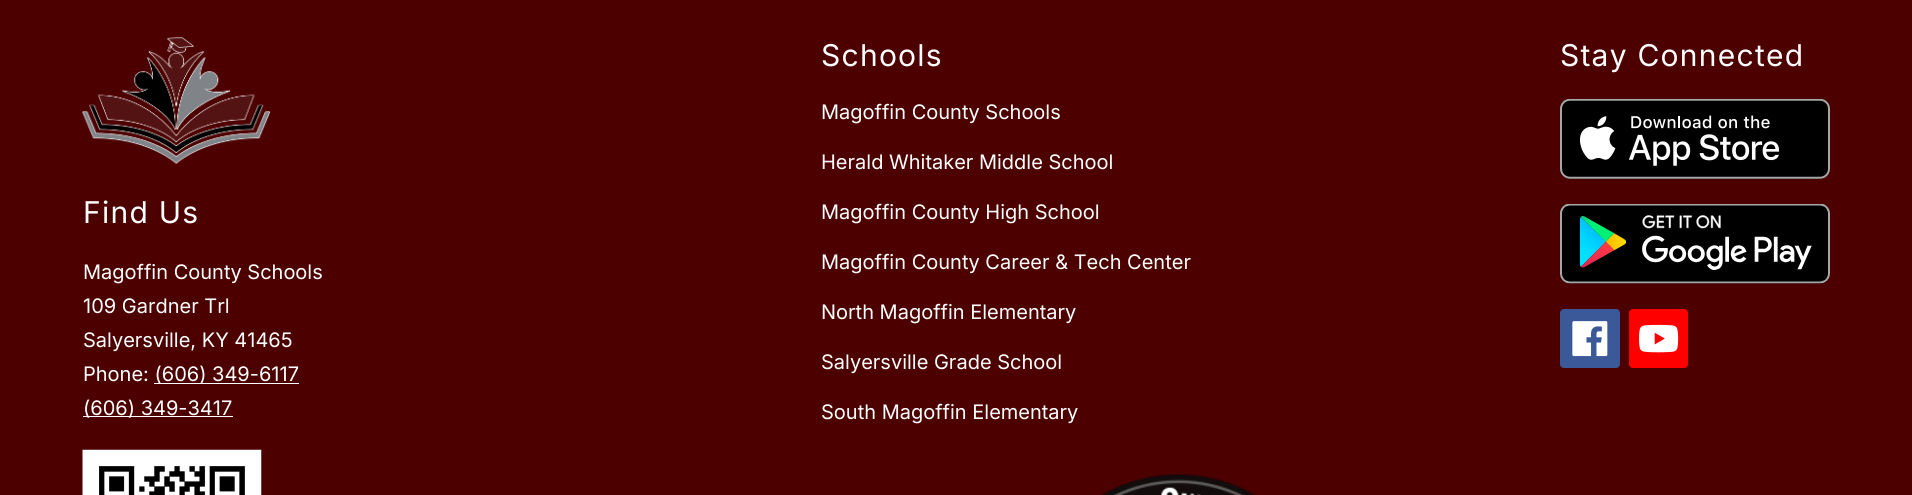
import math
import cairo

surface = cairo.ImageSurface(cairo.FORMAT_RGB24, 1912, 495)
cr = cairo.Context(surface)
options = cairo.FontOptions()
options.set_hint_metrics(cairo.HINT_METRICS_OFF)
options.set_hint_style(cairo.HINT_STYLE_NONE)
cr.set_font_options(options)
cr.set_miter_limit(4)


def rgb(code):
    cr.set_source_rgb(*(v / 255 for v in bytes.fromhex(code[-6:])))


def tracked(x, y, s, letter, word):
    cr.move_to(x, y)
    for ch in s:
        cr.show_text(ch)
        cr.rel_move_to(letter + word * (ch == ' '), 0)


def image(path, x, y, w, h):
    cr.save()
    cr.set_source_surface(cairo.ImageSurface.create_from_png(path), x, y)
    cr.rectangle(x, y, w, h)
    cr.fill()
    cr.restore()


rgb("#4d0000")
cr.paint()
image("img/1.png", 1100, 474, 157, 21)
image("img/2.png", 1560, 99, 270, 80)
image("img/3.png", 1560, 204, 270, 80)
image("img/4.png", 1560, 309, 60, 59)
image("img/5.png", 1629, 309, 59, 59)
image("img/6.png", 82, 37, 188, 127)
rgb("#ffffff")
cr.rectangle(154, 383, 145, 1)
cr.fill()
cr.rectangle(83, 416, 150, 1)
cr.fill()
image("img/7.png", 82, 449, 180, 46)
cr.select_font_face("Inter")
cr.set_font_size(30)
tracked(821, 66, "Schools", 1.25, 0)
cr.set_font_size(20)
for x, y, s in [
    (821, 119, "Magoffin County Schools"),
    (821, 169, "Herald Whitaker Middle School"),
    (821, 219, "Magoffin County High School"),
    (821, 269, "Magoffin County Career & Tech Center"),
    (821, 319, "North Magoffin Elementary"),
    (821, 369, "Salyersville Grade School"),
    (821, 419, "South Magoffin Elementary"),
]:
    cr.move_to(x, y)
    cr.show_text(s)
cr.set_font_size(30)
tracked(1560, 66, "Stay Connected", 1.25, 0)
tracked(83, 223, "Find Us", 1.25, 0)
cr.set_font_size(20)
for x, y, s in [
    (83, 279, "Magoffin County Schools"),
    (83, 313, "109 Gardner Trl"),
    (83, 347, "Salyersville, KY 41465"),
    (83, 381, "Phone: (606) 349-6117"),
    (83, 415, "(606) 349-3417"),
]:
    cr.move_to(x, y)
    cr.show_text(s)
surface.write_to_png("page.png")
